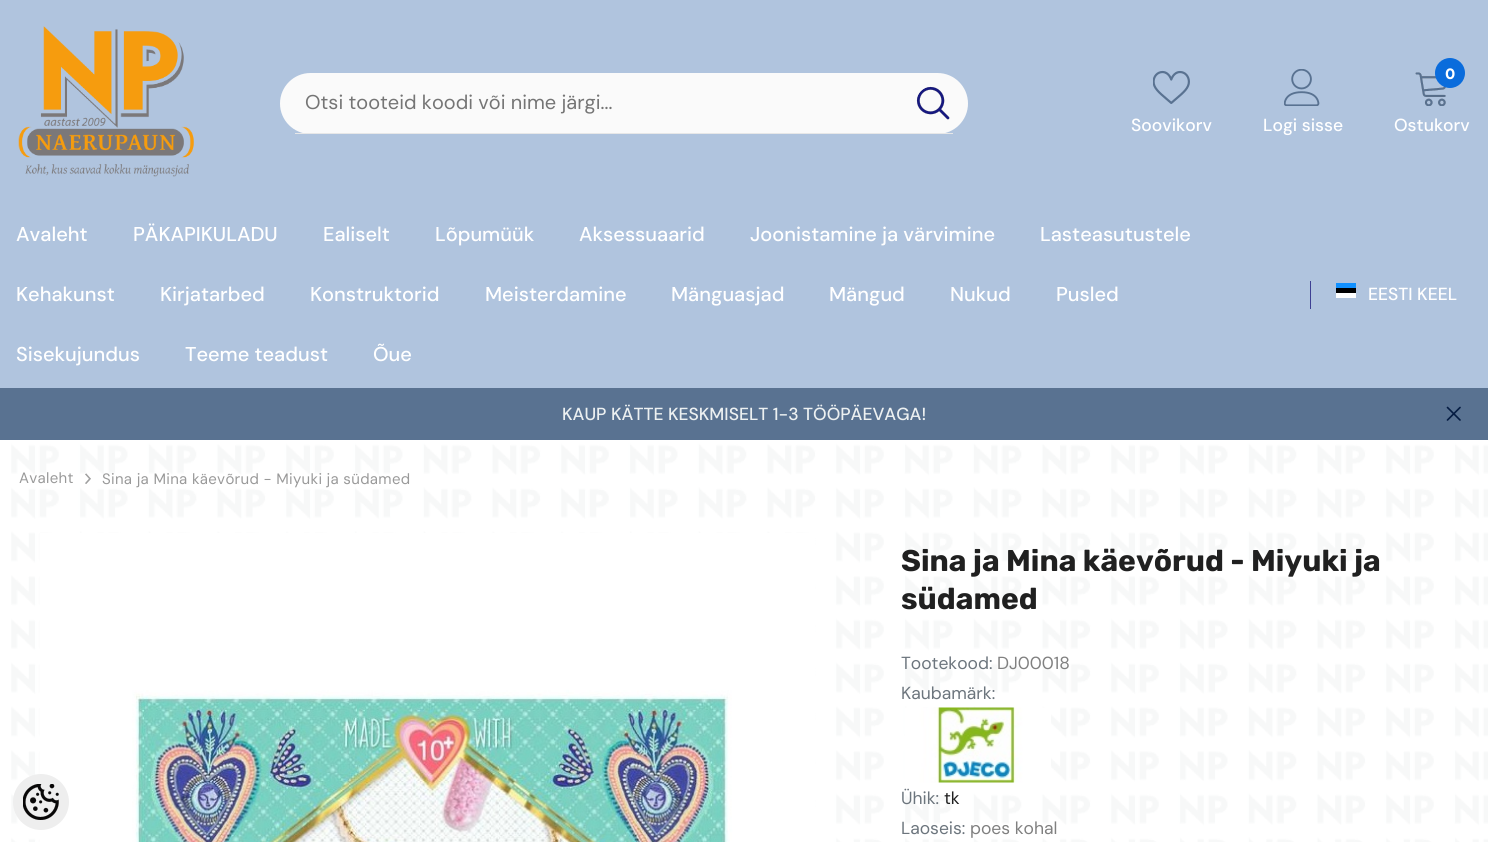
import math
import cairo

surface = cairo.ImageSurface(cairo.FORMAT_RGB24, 1488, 842)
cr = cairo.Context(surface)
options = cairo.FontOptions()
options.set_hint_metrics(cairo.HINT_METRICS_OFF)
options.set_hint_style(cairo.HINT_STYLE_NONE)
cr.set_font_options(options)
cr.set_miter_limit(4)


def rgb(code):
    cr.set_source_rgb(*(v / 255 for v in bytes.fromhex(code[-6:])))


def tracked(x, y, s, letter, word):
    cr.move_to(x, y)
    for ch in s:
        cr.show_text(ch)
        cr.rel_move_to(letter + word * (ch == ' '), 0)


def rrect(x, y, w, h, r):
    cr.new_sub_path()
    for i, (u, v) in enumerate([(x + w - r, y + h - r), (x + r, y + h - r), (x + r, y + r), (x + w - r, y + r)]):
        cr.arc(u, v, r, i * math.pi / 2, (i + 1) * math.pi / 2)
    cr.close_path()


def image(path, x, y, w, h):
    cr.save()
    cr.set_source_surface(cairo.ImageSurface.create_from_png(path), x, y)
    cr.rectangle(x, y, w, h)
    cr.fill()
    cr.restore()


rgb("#ffffff")
cr.paint()
image("img/1.png", 11, 443, 1477, 399)
rgb("#b0c4de")
cr.rectangle(0, 0, 1488, 388)
cr.fill()
image("img/2.png", 18, 26, 176, 151)
rgb("#fafafa")
rrect(280, 73, 688, 61, 30.5)
cr.fill()
rgb("#e7e7e7")
cr.rectangle(295, 133, 658, 1)
cr.fill()
image("img/3.png", 916, 86, 34, 34)
image("img/4.png", 1153, 70, 37, 34)
image("img/5.png", 1284, 69, 36, 37)
image("img/6.png", 1415, 72, 31, 34)
rgb("#0a6cdc")
cr.arc(1450, 73, 15, 0, 2 * math.pi)
cr.fill()
for x, y, w, h, color in [
    (1310, 281, 1, 28, "#3e4093"),
    (1336, 288, 20, 5, "#000000"),
    (1336, 293, 20, 5, "#ffffff"),
    (1336, 283, 20, 5, "#1291ff"),
    (0, 388, 1488, 52, "#597291"),
]:
    rgb(color)
    cr.rectangle(x, y, w, h)
    cr.fill()
image("img/7.png", 1446, 406, 15, 15)
image("img/8.png", 85, 473, 6, 11)
image("img/9.png", 40, 533, 775, 309)
image("img/10.png", 905, 707, 146, 76)
rgb("#eeeeee")
cr.arc(41, 802, 28, 0, 2 * math.pi)
cr.fill()
image("img/11.png", 23, 784, 36, 36)
cr.select_font_face("DM Sans")
cr.set_font_size(20)
rgb("#757575")
cr.move_to(305, 109)
cr.show_text("Otsi tooteid koodi või nime järgi...")
cr.select_font_face("DM Sans Medium")
cr.set_font_size(17.5)
rgb("#ffffff")
cr.move_to(1131, 131)
cr.show_text("Soovikorv")
cr.move_to(1263, 131)
cr.show_text("Logi sisse")
cr.select_font_face("DM Sans Black")
cr.set_font_size(15)
tracked(1445, 79, "0", 0.3, 0)
cr.select_font_face("DM Sans Medium")
cr.set_font_size(17.5)
cr.move_to(1394, 131)
cr.show_text("Ostukorv")
cr.select_font_face("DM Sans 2 Medium")
cr.set_font_size(20)
for x, y, s in [
    (16, 241, "Avaleht"),
    (133, 241, "PÄKAPIKULADU"),
    (323, 241, "Ealiselt"),
    (435, 241, "Lõpumüük"),
    (579, 241, "Aksessuaarid"),
    (750, 241, "Joonistamine ja värvimine"),
    (1040, 241, "Lasteasutustele"),
    (16, 301, "Kehakunst"),
    (160, 301, "Kirjatarbed"),
    (310, 301, "Konstruktorid"),
    (485, 301, "Meisterdamine"),
    (671, 301, "Mänguasjad"),
    (829, 301, "Mängud"),
    (950, 301, "Nukud"),
    (1056, 301, "Pusled"),
    (16, 361, "Sisekujundus"),
    (185, 361, "Teeme teadust"),
    (373, 361, "Õue"),
]:
    cr.move_to(x, y)
    cr.show_text(s)
cr.select_font_face("DM Sans Medium")
cr.set_font_size(17.5)
cr.move_to(1368, 300)
cr.show_text("EESTI KEEL")
rgb("#ecf0f1")
cr.move_to(562, 420)
cr.show_text("KAUP KÄTTE KESKMISELT 1-3 TÖÖPÄEVAGA!")
cr.select_font_face("DM Sans 2")
cr.set_font_size(15)
rgb("#999999")
tracked(19, 483, "Avaleht", 0.3, 0)
tracked(102, 484, "Sina ja Mina käevõrud - Miyuki ja südamed", 0.3, 0)
cr.select_font_face("Rubik", cairo.FONT_SLANT_NORMAL, cairo.FONT_WEIGHT_BOLD)
cr.set_font_size(30)
rgb("#202020")
cr.move_to(901, 571)
cr.show_text("Sina ja Mina käevõrud - Miyuki ja")
cr.move_to(901, 609)
cr.show_text("südamed")
cr.select_font_face("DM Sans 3")
cr.set_font_size(17.5)
rgb("#6c757d")
cr.move_to(901, 669)
cr.show_text("Tootekood:")
rgb("#808080")
cr.move_to(997, 669)
cr.show_text("DJ00018")
rgb("#6c757d")
cr.move_to(901, 699)
cr.show_text("Kaubamärk:")
cr.move_to(901, 804)
cr.show_text("Ühik:")
rgb("#202020")
cr.move_to(944, 804)
cr.show_text("tk")
rgb("#6c757d")
cr.move_to(901, 834)
cr.show_text("Laoseis:")
rgb("#808080")
cr.move_to(970, 834)
cr.show_text("poes kohal")
surface.write_to_png("page.png")
